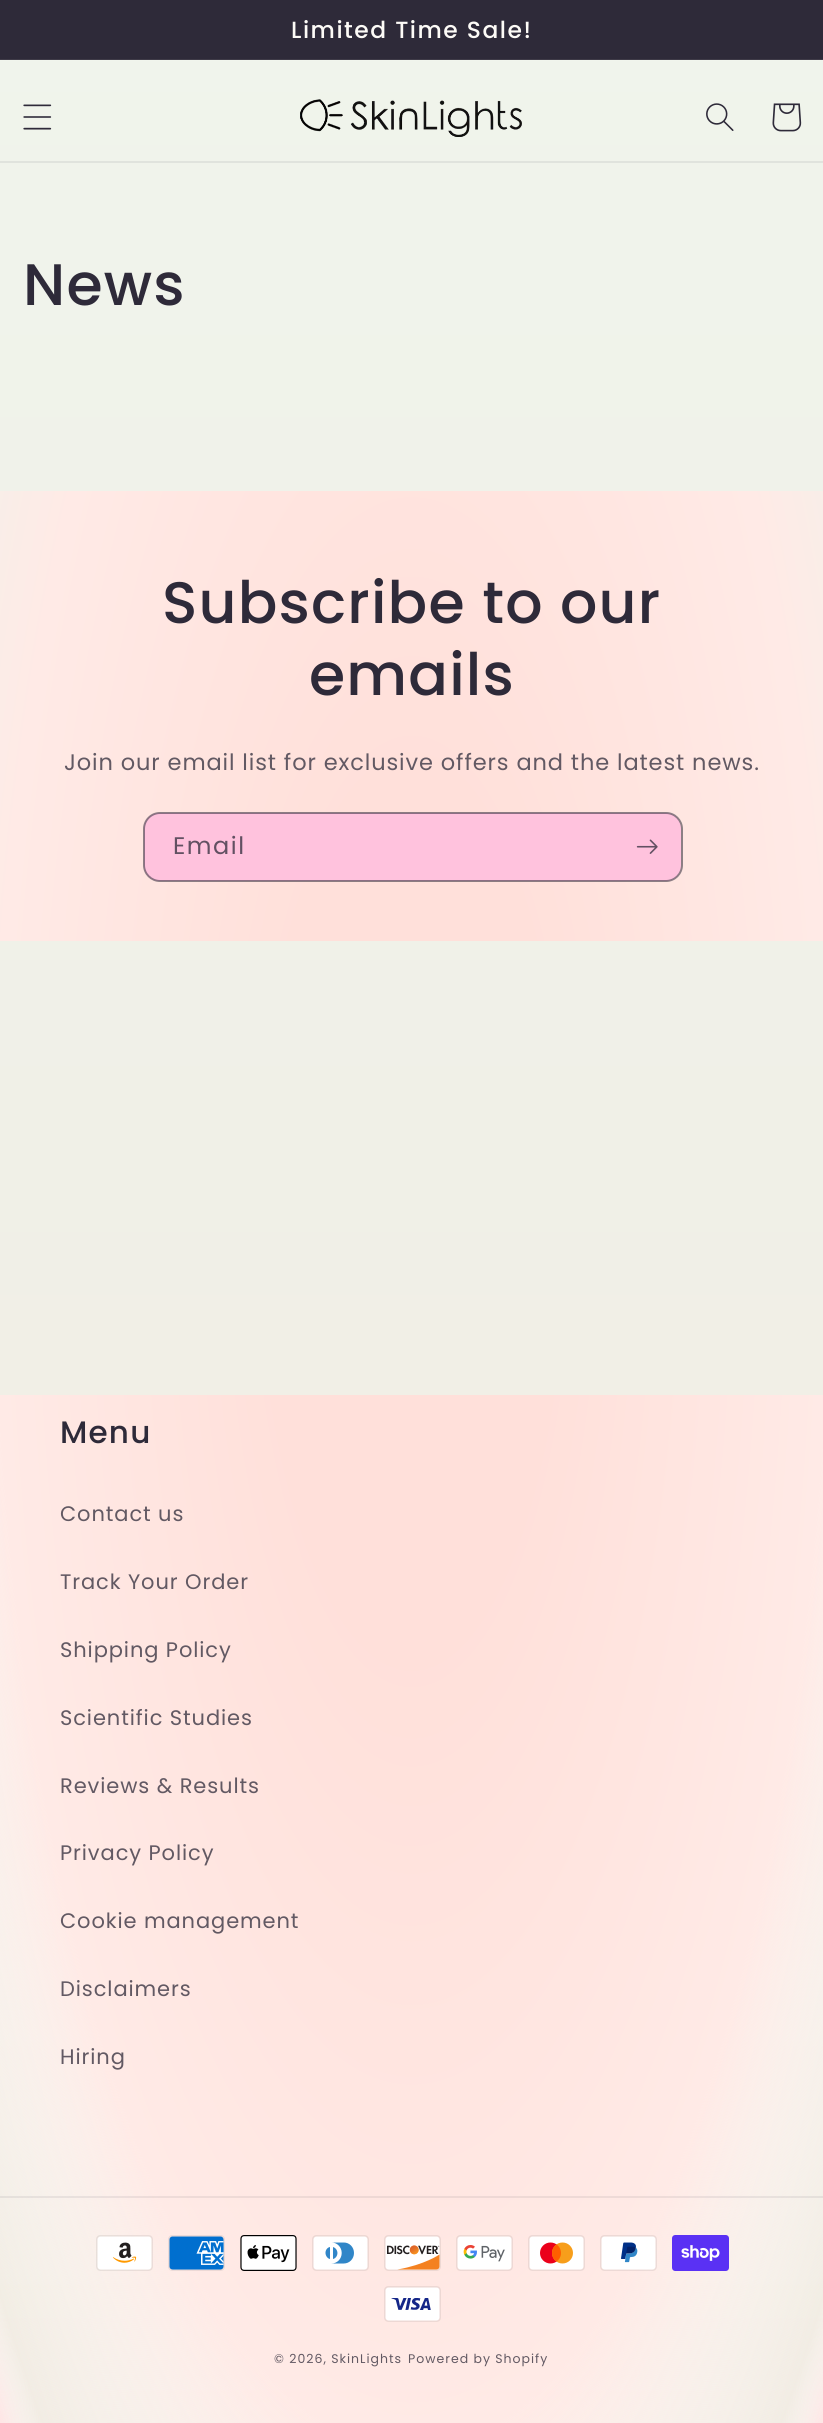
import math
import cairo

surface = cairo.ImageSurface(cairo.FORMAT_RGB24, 823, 2423)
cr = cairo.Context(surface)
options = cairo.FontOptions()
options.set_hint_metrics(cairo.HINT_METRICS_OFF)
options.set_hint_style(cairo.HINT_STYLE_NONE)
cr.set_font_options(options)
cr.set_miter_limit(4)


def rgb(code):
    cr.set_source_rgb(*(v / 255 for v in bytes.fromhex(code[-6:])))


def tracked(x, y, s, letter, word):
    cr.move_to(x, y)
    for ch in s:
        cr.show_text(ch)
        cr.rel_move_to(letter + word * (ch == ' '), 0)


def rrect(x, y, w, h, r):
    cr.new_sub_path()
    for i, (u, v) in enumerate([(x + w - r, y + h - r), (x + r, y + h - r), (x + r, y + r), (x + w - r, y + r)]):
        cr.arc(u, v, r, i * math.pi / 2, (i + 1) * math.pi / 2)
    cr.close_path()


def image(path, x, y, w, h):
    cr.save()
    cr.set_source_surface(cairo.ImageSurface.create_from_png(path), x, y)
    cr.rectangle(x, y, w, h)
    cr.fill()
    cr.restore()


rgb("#ffffff")
cr.paint()
gradient = cairo.LinearGradient(412, 0, 412, 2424)
gradient.add_color_stop_rgba(0, 0.941, 0.957, 0.925, 1)
gradient.add_color_stop_rgba(1, 0.945, 0.922, 0.886, 1)
cr.set_source(gradient)
cr.rectangle(0, 61, 823, 2362)
cr.fill()
gradient = cairo.LinearGradient(412, 0, 412, 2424)
gradient.add_color_stop_rgba(0, 0.945, 0.961, 0.929, 1)
gradient.add_color_stop_rgba(1, 0.949, 0.925, 0.894, 1)
cr.set_source(gradient)
cr.rectangle(0, 60, 823, 1)
cr.fill()
for x, y, w, h, color in [
    (0, 0, 823, 59, "#2e2a39"),
    (0, 59, 823, 1, "#3f3b48"),
    (0, 161, 823, 2, "#e0e3dd"),
]:
    rgb(color)
    cr.rectangle(x, y, w, h)
    cr.fill()
image("img/1.png", 23, 104, 29, 26)
image("img/2.png", 300, 99, 222, 38)
image("img/3.png", 706, 103, 28, 28)
image("img/4.png", 772, 103, 30, 29)
gradient = cairo.RadialGradient(0, 0, 0, 0, 0, 1)
gradient.set_matrix(cairo.Matrix(1 / 582, 0, 0, 1 / 1714, -1 * 412 / 582, -1 * 1212 / 1714))
gradient.add_color_stop_rgba(0.25, 1, 0.878, 0.855, 1)
gradient.add_color_stop_rgba(0.72, 1, 0.918, 0.902, 1)
gradient.add_color_stop_rgba(0.95, 0.945, 0.949, 0.918, 1)
gradient.add_color_stop_rgba(1, 1, 0.898, 0.898, 1)
cr.set_source(gradient)
cr.rectangle(0, 491, 823, 450)
cr.fill()
rgb("#ffc2dd")
rrect(144, 813, 537, 68, 15)
cr.fill()
rrect(144, 813, 538, 68, 16)
cr.set_source_rgba(0.18, 0.165, 0.224, 0.55)
cr.stroke()
image("img/5.png", 636, 839, 22, 15)
gradient = cairo.RadialGradient(0, 0, 0, 0, 0, 1)
gradient.set_matrix(cairo.Matrix(1 / 582, 0, 0, 1 / 1714, -1 * 412 / 582, -1 * 1212 / 1714))
gradient.add_color_stop_rgba(0.25, 1, 0.878, 0.855, 1)
gradient.add_color_stop_rgba(0.72, 1, 0.918, 0.902, 1)
gradient.add_color_stop_rgba(0.95, 1, 1, 0.996, 0.07)
gradient.add_color_stop_rgba(1, 1, 0.898, 0.898, 1)
cr.set_source(gradient)
cr.rectangle(0, 1395, 823, 1028)
cr.fill()
cr.set_source_rgba(0.18, 0.165, 0.224, 0.08)
cr.rectangle(0, 2196, 823, 2)
cr.fill()
image("img/6.png", 96, 2235, 57, 36)
image("img/7.png", 168, 2235, 57, 36)
image("img/8.png", 240, 2235, 57, 36)
image("img/9.png", 312, 2235, 57, 36)
image("img/10.png", 384, 2235, 57, 36)
image("img/11.png", 456, 2235, 57, 36)
image("img/12.png", 528, 2235, 57, 36)
image("img/13.png", 600, 2235, 57, 36)
image("img/14.png", 672, 2235, 57, 36)
image("img/15.png", 384, 2286, 57, 36)
cr.select_font_face("Poppins Medium")
cr.set_font_size(23.4)
rgb("#fdfbf7")
tracked(291, 38, "Limited Time Sale!", 1.5, 0)
cr.set_font_size(58.5)
rgb("#2e2a39")
for x, y, s in [
    (23, 305, "News"),
    (162, 623, "Subscribe to our"),
    (309, 695, "emails"),
]:
    tracked(x, y, s, 1.2, 0)
cr.select_font_face("Poppins")
cr.set_font_size(22.5)
rgb("#625963")
tracked(64, 770, "Join our email list for exclusive offers and the latest news.", 0.9, 0)
cr.set_font_size(24)
rgb("#625062")
tracked(173, 854, "Email", 1.5, 0)
cr.select_font_face("Poppins Medium")
cr.set_font_size(31)
rgb("#2e2a39")
tracked(60, 1443, "Menu", 1.2, 0)
cr.select_font_face("Poppins")
cr.set_font_size(21)
rgb("#625963")
for x, y, s in [
    (60, 1521, "Contact us"),
    (60, 1589, "Track Your Order"),
    (60, 1657, "Shipping Policy"),
    (60, 1725, "Scientific Studies"),
    (60, 1793, "Reviews & Results"),
    (60, 1860, "Privacy Policy"),
    (60, 1928, "Cookie management"),
    (60, 1996, "Disclaimers"),
    (60, 2064, "Hiring"),
]:
    tracked(x, y, s, 0.9, 0)
cr.set_font_size(12.5)
tracked(274, 2363, "© 2026, SkinLights", 1, 0)
tracked(408, 2363, "Powered by Shopify", 1, 0)
surface.write_to_png("page.png")
